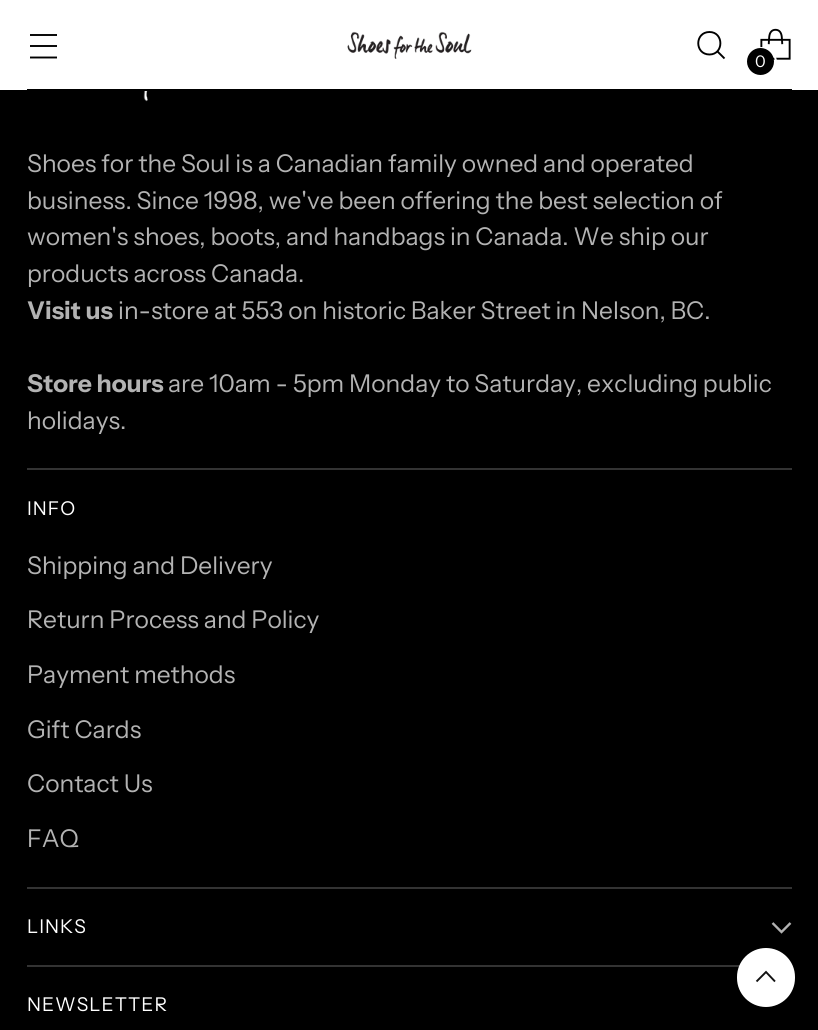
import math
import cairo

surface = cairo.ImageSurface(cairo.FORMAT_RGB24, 818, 1030)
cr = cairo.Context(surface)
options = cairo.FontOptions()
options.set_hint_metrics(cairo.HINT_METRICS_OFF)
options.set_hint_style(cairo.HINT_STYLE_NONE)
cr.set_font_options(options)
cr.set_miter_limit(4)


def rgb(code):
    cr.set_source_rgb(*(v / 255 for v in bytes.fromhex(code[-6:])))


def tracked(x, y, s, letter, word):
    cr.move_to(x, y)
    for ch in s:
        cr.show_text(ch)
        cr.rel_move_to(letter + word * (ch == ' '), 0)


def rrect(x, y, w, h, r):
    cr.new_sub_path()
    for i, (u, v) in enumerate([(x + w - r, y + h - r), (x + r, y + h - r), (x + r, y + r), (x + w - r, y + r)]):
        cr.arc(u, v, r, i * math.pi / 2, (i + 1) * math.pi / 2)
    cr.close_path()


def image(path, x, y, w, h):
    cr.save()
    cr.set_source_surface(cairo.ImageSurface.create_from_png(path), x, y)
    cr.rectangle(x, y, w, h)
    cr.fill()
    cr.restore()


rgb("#000000")
cr.paint()
rgb("#ffffff")
cr.rectangle(0, 0, 818, 90)
cr.fill()
rgb("#000000")
cr.rectangle(27, 89, 765, 1)
cr.fill()
cr.new_path()
cr.move_to(30, 46)
cr.line_to(57, 46)
cr.move_to(30, 35)
cr.line_to(57, 35)
cr.move_to(30, 57.5)
cr.line_to(57, 57.5)
cr.set_line_width(1.9)
cr.stroke()
image("img/1.png", 347, 31, 125, 28)
cr.new_path()
cr.move_to(709.5, 54.5)
cr.curve_to(724, 54.5, 724, 32, 709.5, 32)
cr.curve_to(694.5, 32, 694.5, 54.5, 709.5, 54.5)
cr.close_path()
cr.set_line_cap(cairo.LINE_CAP_ROUND)
cr.stroke()
cr.new_path()
cr.move_to(717.5, 51.5)
cr.line_to(724.5, 58.5)
cr.set_line_cap(cairo.LINE_CAP_BUTT)
cr.stroke()
image("img/2.png", 760, 28, 31, 32)
cr.arc(761.5, 62.5, 14.5, 0, 2 * math.pi)
rgb("#ffffff")
cr.set_line_width(2)
cr.stroke()
rgb("#000000")
cr.arc(760.5, 61.5, 13.5, 0, 2 * math.pi)
cr.fill()
rgb("#333333")
cr.rectangle(27, 468, 765, 2)
cr.fill()
image("img/3.png", 143, 91, 5, 11)
cr.rectangle(27, 887, 765, 2)
cr.fill()
cr.rectangle(27, 965, 713, 2)
cr.fill()
cr.new_path()
cr.move_to(772.5, 923)
cr.line_to(781.5, 932)
cr.line_to(790.5, 923)
rgb("#b3b3b3")
cr.set_line_width(2.4)
cr.stroke()
rgb("#ffffff")
rrect(737, 948, 58, 59, 29)
cr.fill()
cr.new_path()
cr.move_to(775, 981.5)
cr.line_to(766, 972)
cr.line_to(756.5, 981.5)
rgb("#111111")
cr.set_line_width(1.9)
cr.stroke()
cr.select_font_face("Instrument Sans")
cr.set_font_size(16)
rgb("#ffffff")
cr.move_to(755, 67)
cr.show_text("0")
cr.set_font_size(24.5)
rgb("#b3b3b3")
for x, y, s in [
    (27, 172, "Shoes for the Soul is a Canadian family owned and operated"),
    (27, 209, "business. Since 1998, we've been offering the best selection of"),
    (27, 245, "women's shoes, boots, and handbags in Canada. We ship our"),
    (27, 282, "products across Canada."),
]:
    cr.move_to(x, y)
    cr.show_text(s)
cr.select_font_face("Instrument Sans", cairo.FONT_SLANT_NORMAL, cairo.FONT_WEIGHT_BOLD)
cr.move_to(27, 319)
cr.show_text("Visit us")
cr.select_font_face("Instrument Sans")
cr.move_to(118, 319)
cr.show_text("in-store at 553 on historic Baker Street in Nelson, BC.")
cr.select_font_face("Instrument Sans", cairo.FONT_SLANT_NORMAL, cairo.FONT_WEIGHT_BOLD)
cr.move_to(27, 392)
cr.show_text("Store hours")
cr.select_font_face("Instrument Sans")
cr.move_to(168, 392)
cr.show_text("are 10am - 5pm Monday to Saturday, excluding public")
cr.move_to(27, 429)
cr.show_text("holidays.")
cr.set_font_size(19)
rgb("#ffffff")
tracked(27, 515, "INFO", 1, 0)
cr.set_font_size(24.5)
rgb("#b3b3b3")
for x, y, s in [
    (27, 574, "Shipping and Delivery"),
    (27, 628, "Return Process and Policy"),
    (27, 683, "Payment methods"),
    (27, 738, "Gift Cards"),
    (27, 792, "Contact Us"),
    (27, 847, "FAQ"),
]:
    cr.move_to(x, y)
    cr.show_text(s)
cr.set_font_size(19)
rgb("#ffffff")
tracked(27, 933, "LINKS", 1, 0)
tracked(27, 1011, "NEWSLETTER", 1, 0)
surface.write_to_png("page.png")
